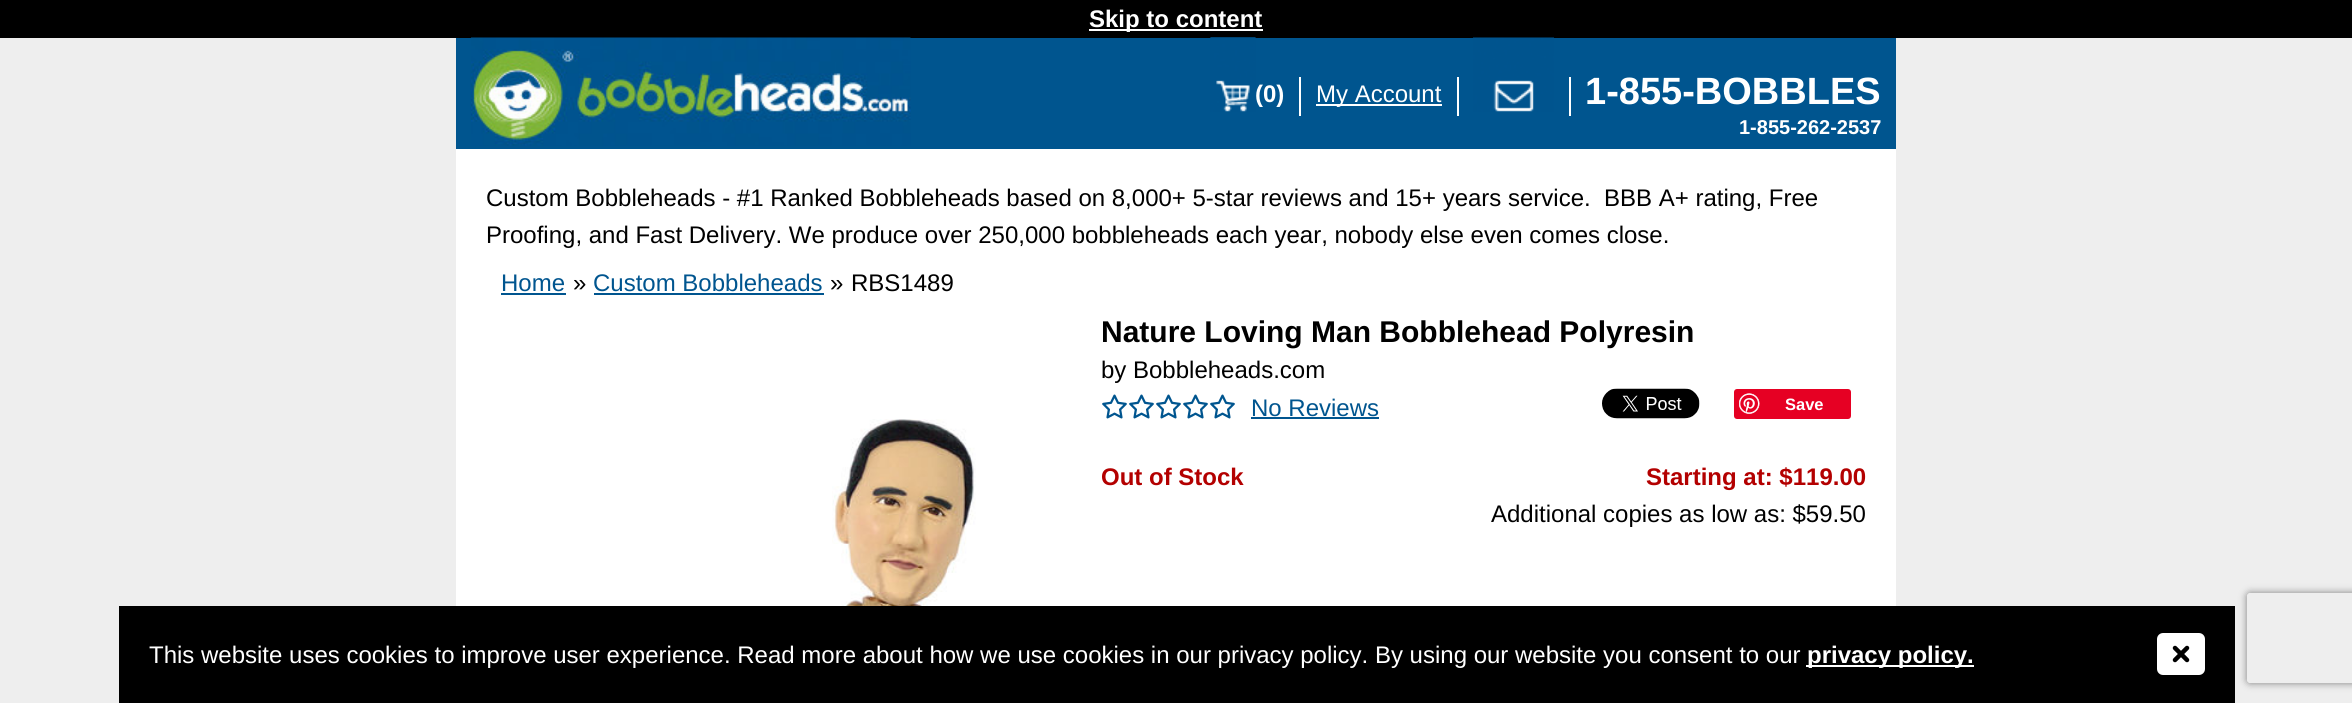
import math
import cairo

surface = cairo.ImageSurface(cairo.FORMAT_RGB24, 2352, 703)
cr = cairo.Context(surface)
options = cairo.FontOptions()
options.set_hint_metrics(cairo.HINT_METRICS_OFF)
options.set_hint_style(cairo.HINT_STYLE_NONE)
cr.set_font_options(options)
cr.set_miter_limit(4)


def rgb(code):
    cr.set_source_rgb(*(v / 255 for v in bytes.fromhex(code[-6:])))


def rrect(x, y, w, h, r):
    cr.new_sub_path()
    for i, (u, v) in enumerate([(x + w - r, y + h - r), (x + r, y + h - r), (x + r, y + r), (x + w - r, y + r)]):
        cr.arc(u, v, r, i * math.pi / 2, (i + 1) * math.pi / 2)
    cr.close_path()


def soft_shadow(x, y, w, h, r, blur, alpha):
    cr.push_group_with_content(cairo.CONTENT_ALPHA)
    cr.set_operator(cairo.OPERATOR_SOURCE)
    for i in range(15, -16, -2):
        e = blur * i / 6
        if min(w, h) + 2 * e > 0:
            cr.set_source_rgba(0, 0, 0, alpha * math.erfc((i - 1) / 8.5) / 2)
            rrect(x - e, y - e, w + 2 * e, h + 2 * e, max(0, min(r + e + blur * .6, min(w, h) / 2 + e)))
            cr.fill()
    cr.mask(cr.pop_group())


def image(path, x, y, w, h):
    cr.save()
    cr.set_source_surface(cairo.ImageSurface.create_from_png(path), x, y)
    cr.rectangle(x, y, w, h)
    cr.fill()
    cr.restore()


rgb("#eeeeee")
cr.paint()
for x, y, w, h, color in [
    (0, 0, 2352, 38, "#000000"),
    (1089, 29, 174, 2, "#ffffff"),
    (456, 149, 1440, 457, "#ffffff"),
    (456, 38, 1440, 111, "#00558f"),
]:
    rgb(color)
    cr.rectangle(x, y, w, h)
    cr.fill()
image("img/1.png", 471, 37, 440, 109)
image("img/2.png", 1210, 37, 46, 75)
image("img/3.png", 1210, 37, 46, 1)
for x, y, w, h, color in [
    (1299, 77, 2, 39, "#ffffff"),
    (1316, 104, 126, 2, "#ffffff"),
    (1457, 77, 2, 39, "#ffffff"),
]:
    rgb(color)
    cr.rectangle(x, y, w, h)
    cr.fill()
image("img/4.png", 1473, 37, 81, 75)
for x, y, w, h, color in [
    (1569, 77, 2, 39, "#ffffff"),
    (501, 293, 65, 2, "#00558f"),
    (594, 293, 230, 2, "#00558f"),
]:
    rgb(color)
    cr.rectangle(x, y, w, h)
    cr.fill()
image("img/5.png", 832, 419, 144, 187)
image("img/6.png", 1102, 394, 25, 25)
image("img/6.png", 1129, 394, 25, 25)
image("img/6.png", 1156, 394, 25, 25)
image("img/6.png", 1183, 394, 25, 25)
image("img/6.png", 1210, 394, 25, 25)
cr.rectangle(1251, 417, 128, 2)
cr.fill()
image("img/7.png", 1602, 388, 98, 31)
rgb("#e60023")
rrect(1734, 389, 117, 30, 3)
cr.fill()
image("img/8.png", 1739, 393, 21, 21)
cr.save()
cr.set_fill_rule(cairo.FILL_RULE_EVEN_ODD)
cr.new_path()
cr.move_to(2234, 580)
cr.line_to(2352, 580)
cr.line_to(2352, 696)
cr.line_to(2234, 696)
cr.close_path()
cr.move_to(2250, 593)
cr.line_to(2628, 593)
cr.curve_to(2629.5, 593, 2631, 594.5, 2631, 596)
cr.line_to(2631, 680)
cr.curve_to(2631, 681.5, 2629.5, 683, 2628, 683)
cr.line_to(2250, 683)
cr.curve_to(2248.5, 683, 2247, 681.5, 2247, 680)
cr.line_to(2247, 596)
cr.curve_to(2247, 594.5, 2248.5, 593, 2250, 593)
cr.close_path()
cr.clip()
rgb("#808080")
soft_shadow(2247, 593, 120, 90, 3, 4, 1)
cr.restore()
rgb("#000000")
cr.rectangle(119, 606, 2116, 97)
cr.fill()
rgb("#ffffff")
cr.rectangle(1806, 665, 168, 2)
cr.fill()
image("img/9.png", 2157, 633, 48, 42)
cr.select_font_face("Liberation Sans", cairo.FONT_SLANT_NORMAL, cairo.FONT_WEIGHT_BOLD)
cr.set_font_size(24)
cr.move_to(1089, 27)
cr.show_text("Skip to content")
cr.move_to(1255, 102)
cr.show_text("(0)")
cr.select_font_face("Liberation Sans")
cr.move_to(1316, 102)
cr.show_text("My Account")
cr.select_font_face("Liberation Sans", cairo.FONT_SLANT_NORMAL, cairo.FONT_WEIGHT_BOLD)
cr.set_font_size(38)
cr.move_to(1585, 104)
cr.show_text("1-855-BOBBLES")
cr.set_font_size(20)
cr.move_to(1739, 134)
cr.show_text("1-855-262-2537")
cr.select_font_face("Liberation Sans")
cr.set_font_size(24)
rgb("#000000")
cr.move_to(486, 206)
cr.show_text("Custom Bobbleheads - #1 Ranked Bobbleheads based on 8,000+ 5-star reviews and 15+ years service.  BBB A+ rating, Free")
cr.move_to(486, 243)
cr.show_text("Proofing, and Fast Delivery. We produce over 250,000 bobbleheads each year, nobody else even comes close.")
rgb("#00558f")
cr.move_to(501, 291)
cr.show_text("Home")
rgb("#000000")
cr.move_to(573, 291)
cr.show_text("»")
rgb("#00558f")
cr.move_to(593, 291)
cr.show_text("Custom Bobbleheads")
rgb("#000000")
cr.move_to(830, 291)
cr.show_text("»")
cr.move_to(851, 291)
cr.show_text("RBS1489")
cr.select_font_face("Liberation Sans", cairo.FONT_SLANT_NORMAL, cairo.FONT_WEIGHT_BOLD)
cr.set_font_size(30)
cr.move_to(1101, 342)
cr.show_text("Nature Loving Man Bobblehead Polyresin")
cr.select_font_face("Liberation Sans")
cr.set_font_size(24)
cr.move_to(1101, 378)
cr.show_text("by Bobbleheads.com")
rgb("#00558f")
cr.move_to(1251, 416)
cr.show_text("No Reviews")
cr.select_font_face("Liberation Sans", cairo.FONT_SLANT_NORMAL, cairo.FONT_WEIGHT_BOLD)
cr.set_font_size(16.5)
rgb("#ffffff")
cr.move_to(1785, 410)
cr.show_text("Save")
cr.set_font_size(24)
rgb("#b30000")
cr.move_to(1101, 485)
cr.show_text("Out of Stock")
cr.move_to(1646, 485)
cr.show_text("Starting at: $119.00")
cr.select_font_face("Liberation Sans")
rgb("#000000")
cr.move_to(1491, 522)
cr.show_text("Additional copies as low as: $59.50")
rgb("#ffffff")
cr.move_to(149, 663)
cr.show_text("This website uses cookies to improve user experience. Read more about how we use cookies in our privacy policy. By using our website you consent to our")
cr.select_font_face("Liberation Sans", cairo.FONT_SLANT_NORMAL, cairo.FONT_WEIGHT_BOLD)
cr.move_to(1807, 663)
cr.show_text("privacy policy.")
surface.write_to_png("page.png")
